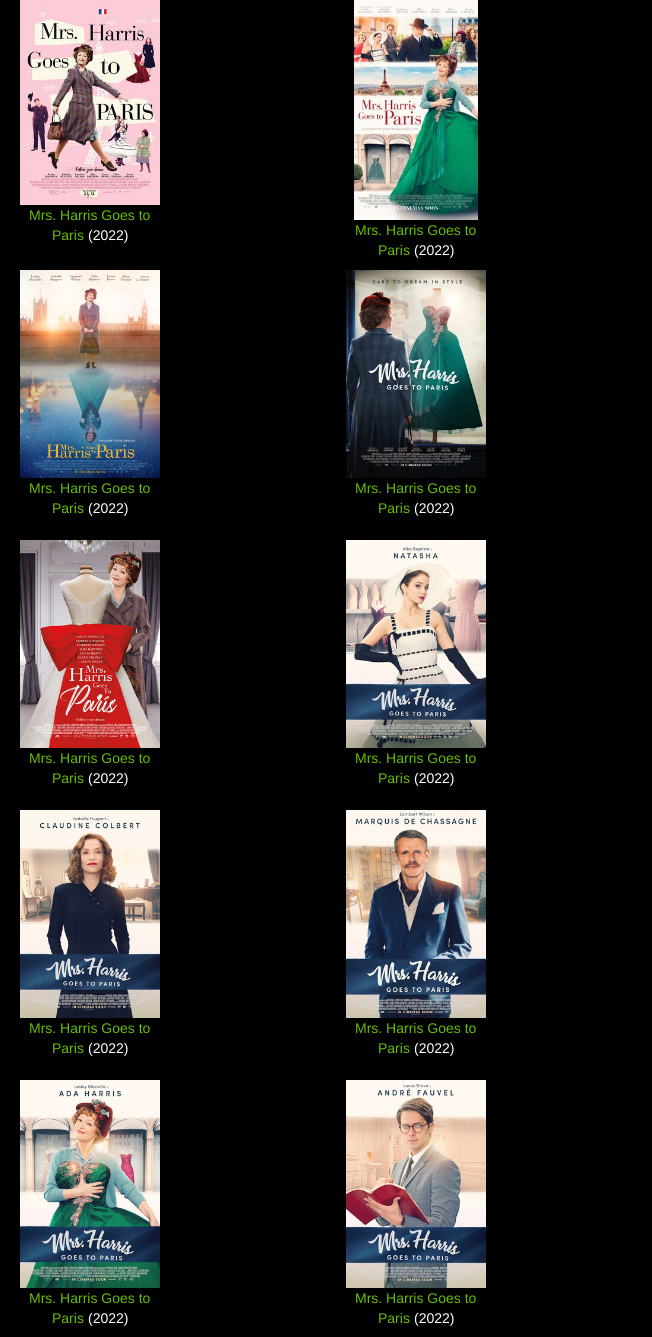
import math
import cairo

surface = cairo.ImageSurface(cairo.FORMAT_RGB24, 652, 1337)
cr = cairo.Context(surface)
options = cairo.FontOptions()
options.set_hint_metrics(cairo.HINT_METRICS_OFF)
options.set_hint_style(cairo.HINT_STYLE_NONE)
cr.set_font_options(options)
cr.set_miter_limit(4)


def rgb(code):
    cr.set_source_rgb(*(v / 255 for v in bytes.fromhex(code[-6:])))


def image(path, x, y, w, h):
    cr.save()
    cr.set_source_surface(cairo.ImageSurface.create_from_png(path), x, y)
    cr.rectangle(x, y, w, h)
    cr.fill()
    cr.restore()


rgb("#000000")
cr.paint()
image("img/1.png", 20, 0, 140, 205)
image("img/2.png", 354, 0, 124, 220)
image("img/3.png", 20, 270, 140, 208)
image("img/4.png", 346, 270, 140, 208)
image("img/5.png", 20, 540, 140, 208)
image("img/6.png", 346, 540, 140, 208)
image("img/7.png", 20, 810, 140, 208)
image("img/8.png", 346, 810, 140, 208)
image("img/9.png", 20, 1080, 140, 208)
image("img/10.png", 346, 1080, 140, 208)
cr.select_font_face("Liberation Sans")
cr.set_font_size(14)
rgb("#66bd04")
cr.move_to(29, 220)
cr.show_text("Mrs. Harris Goes to")
cr.move_to(52, 240)
cr.show_text("Paris")
rgb("#ffffff")
cr.move_to(88, 240)
cr.show_text("(2022)")
rgb("#66bd04")
cr.move_to(355, 235)
cr.show_text("Mrs. Harris Goes to")
cr.move_to(378, 255)
cr.show_text("Paris")
rgb("#ffffff")
cr.move_to(414, 255)
cr.show_text("(2022)")
rgb("#66bd04")
cr.move_to(29, 493)
cr.show_text("Mrs. Harris Goes to")
cr.move_to(52, 513)
cr.show_text("Paris")
rgb("#ffffff")
cr.move_to(88, 513)
cr.show_text("(2022)")
rgb("#66bd04")
cr.move_to(355, 493)
cr.show_text("Mrs. Harris Goes to")
cr.move_to(378, 513)
cr.show_text("Paris")
rgb("#ffffff")
cr.move_to(414, 513)
cr.show_text("(2022)")
rgb("#66bd04")
cr.move_to(29, 763)
cr.show_text("Mrs. Harris Goes to")
cr.move_to(52, 783)
cr.show_text("Paris")
rgb("#ffffff")
cr.move_to(88, 783)
cr.show_text("(2022)")
rgb("#66bd04")
cr.move_to(355, 763)
cr.show_text("Mrs. Harris Goes to")
cr.move_to(378, 783)
cr.show_text("Paris")
rgb("#ffffff")
cr.move_to(414, 783)
cr.show_text("(2022)")
rgb("#66bd04")
cr.move_to(29, 1033)
cr.show_text("Mrs. Harris Goes to")
cr.move_to(52, 1053)
cr.show_text("Paris")
rgb("#ffffff")
cr.move_to(88, 1053)
cr.show_text("(2022)")
rgb("#66bd04")
cr.move_to(355, 1033)
cr.show_text("Mrs. Harris Goes to")
cr.move_to(378, 1053)
cr.show_text("Paris")
rgb("#ffffff")
cr.move_to(414, 1053)
cr.show_text("(2022)")
rgb("#66bd04")
cr.move_to(29, 1303)
cr.show_text("Mrs. Harris Goes to")
cr.move_to(52, 1323)
cr.show_text("Paris")
rgb("#ffffff")
cr.move_to(88, 1323)
cr.show_text("(2022)")
rgb("#66bd04")
cr.move_to(355, 1303)
cr.show_text("Mrs. Harris Goes to")
cr.move_to(378, 1323)
cr.show_text("Paris")
rgb("#ffffff")
cr.move_to(414, 1323)
cr.show_text("(2022)")
surface.write_to_png("page.png")
